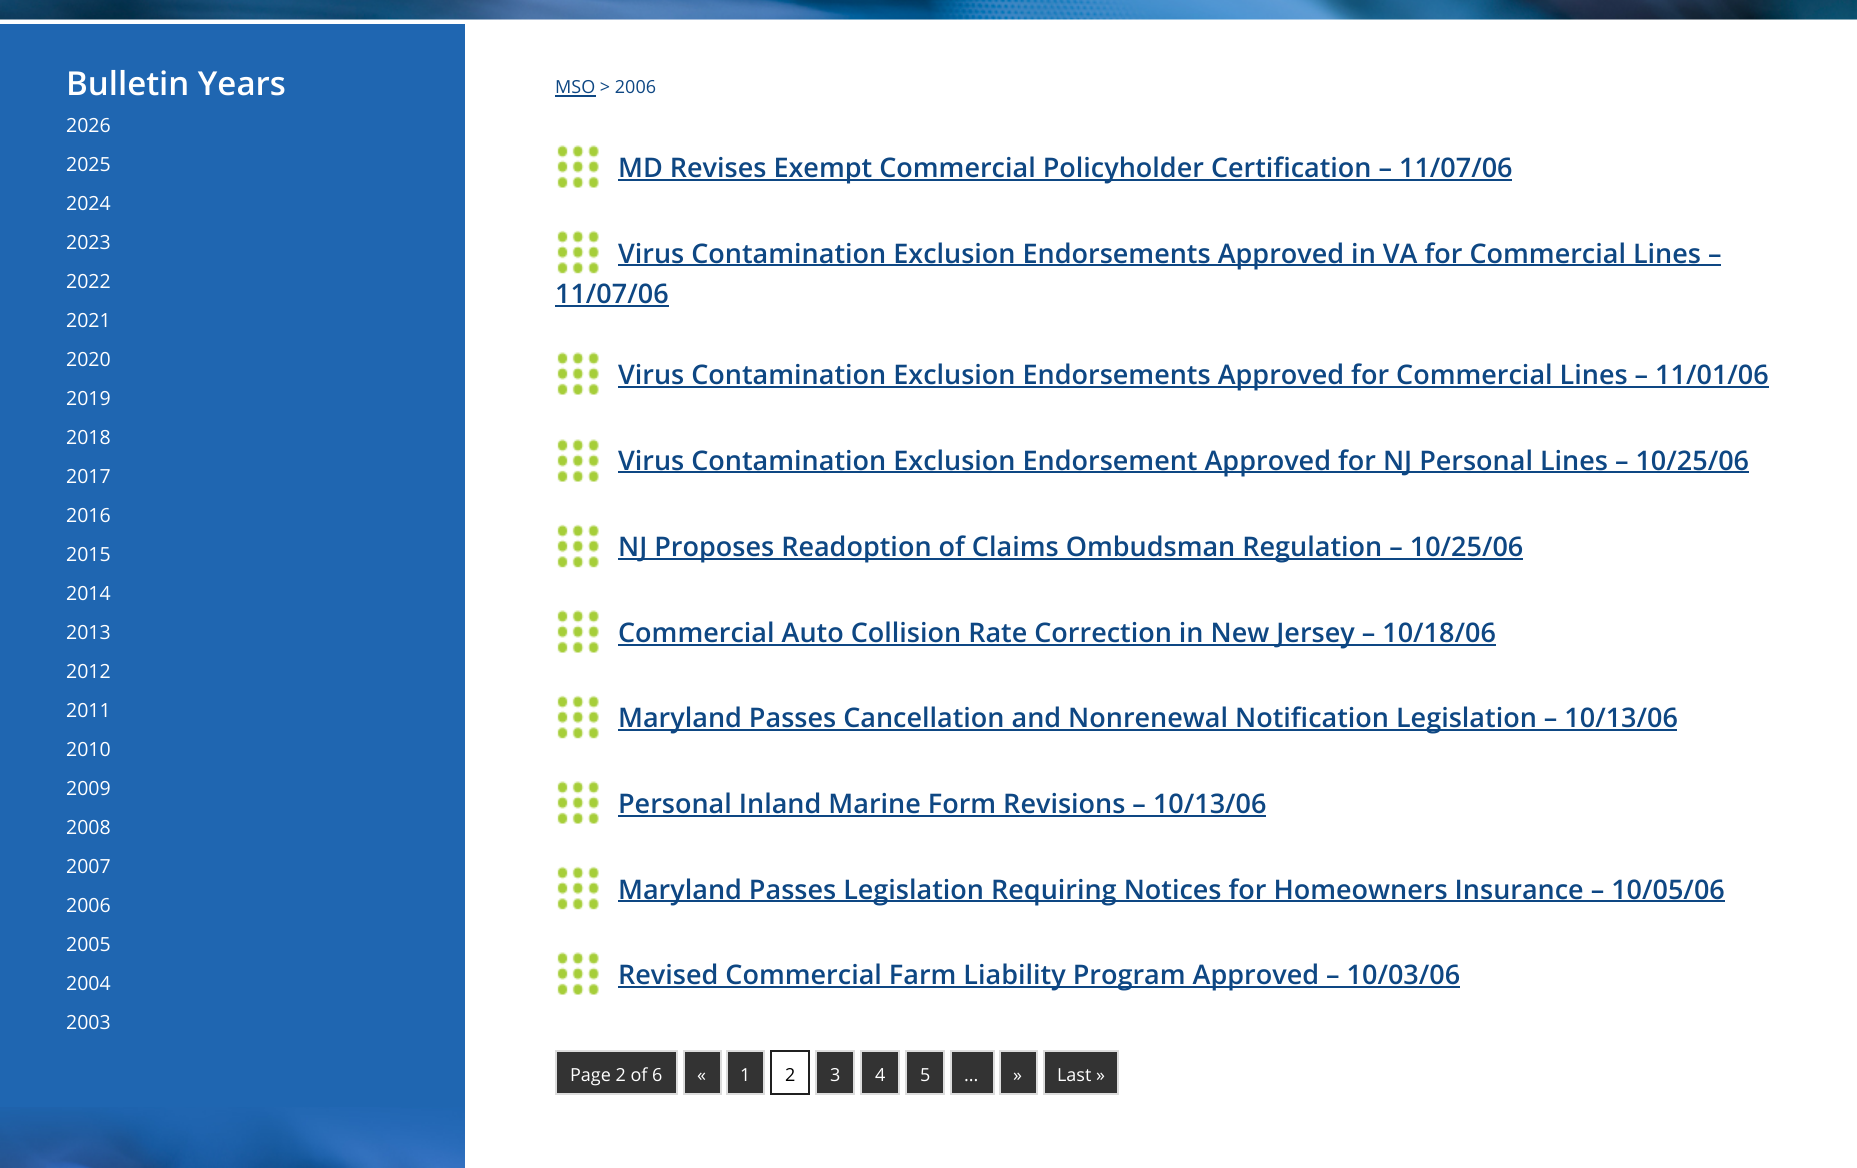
import math
import cairo

surface = cairo.ImageSurface(cairo.FORMAT_RGB24, 1857, 1168)
cr = cairo.Context(surface)
options = cairo.FontOptions()
options.set_hint_metrics(cairo.HINT_METRICS_OFF)
options.set_hint_style(cairo.HINT_STYLE_NONE)
cr.set_font_options(options)
cr.set_miter_limit(4)


def rgb(code):
    cr.set_source_rgb(*(v / 255 for v in bytes.fromhex(code[-6:])))


def image(path, x, y, w, h):
    cr.save()
    cr.set_source_surface(cairo.ImageSurface.create_from_png(path), x, y)
    cr.rectangle(x, y, w, h)
    cr.fill()
    cr.restore()


rgb("#ffffff")
cr.paint()
image("img/1.png", 0, 0, 1857, 20)
rgb("#1f66b1")
cr.rectangle(0, 24, 465, 1083)
cr.fill()
image("img/2.png", 0, 1107, 465, 61)
rgb("#0e4783")
cr.rectangle(555, 95, 41, 2)
cr.fill()
image("img/3.png", 557, 145, 42, 43)
cr.rectangle(618, 179, 894, 2)
cr.fill()
image("img/4.png", 557, 230, 42, 44)
cr.rectangle(618, 264, 1103, 2)
cr.fill()
cr.rectangle(555, 305, 114, 2)
cr.fill()
image("img/3.png", 557, 352, 42, 43)
cr.rectangle(618, 386, 1151, 2)
cr.fill()
image("img/3.png", 557, 439, 42, 43)
cr.rectangle(618, 471, 1131, 2)
cr.fill()
image("img/4.png", 557, 524, 42, 44)
cr.rectangle(618, 558, 905, 2)
cr.fill()
image("img/3.png", 557, 610, 42, 43)
cr.rectangle(618, 644, 878, 2)
cr.fill()
image("img/4.png", 557, 695, 42, 44)
cr.rectangle(618, 729, 1059, 2)
cr.fill()
image("img/3.png", 557, 781, 42, 43)
cr.rectangle(618, 815, 648, 2)
cr.fill()
image("img/4.png", 557, 866, 42, 44)
cr.rectangle(618, 900, 1107, 2)
cr.fill()
image("img/3.png", 557, 952, 42, 43)
cr.rectangle(618, 986, 842, 2)
cr.fill()
rgb("#333333")
cr.rectangle(556, 1051, 121, 43)
cr.fill_preserve()
rgb("#dcdcdc")
cr.stroke()
rgb("#333333")
cr.rectangle(684, 1051, 37, 43)
cr.fill_preserve()
rgb("#dcdcdc")
cr.stroke()
rgb("#333333")
cr.rectangle(727, 1051, 37, 43)
cr.fill_preserve()
rgb("#dcdcdc")
cr.stroke()
cr.rectangle(771, 1051, 38, 43)
rgb("#202020")
cr.stroke()
rgb("#333333")
cr.rectangle(816, 1051, 38, 43)
cr.fill_preserve()
rgb("#dcdcdc")
cr.stroke()
rgb("#333333")
cr.rectangle(861, 1051, 38, 43)
cr.fill_preserve()
rgb("#dcdcdc")
cr.stroke()
rgb("#333333")
cr.rectangle(906, 1051, 38, 43)
cr.fill_preserve()
rgb("#dcdcdc")
cr.stroke()
rgb("#333333")
cr.rectangle(951, 1051, 43, 43)
cr.fill_preserve()
rgb("#dcdcdc")
cr.stroke()
rgb("#333333")
cr.rectangle(1000, 1051, 37, 43)
cr.fill_preserve()
rgb("#dcdcdc")
cr.stroke()
rgb("#333333")
cr.rectangle(1044, 1051, 74, 43)
cr.fill_preserve()
rgb("#dcdcdc")
cr.stroke()
cr.select_font_face("Open Sans SemiBold")
cr.set_font_size(33)
rgb("#ffffff")
cr.move_to(66, 95)
cr.show_text("Bulletin Years")
cr.select_font_face("Open Sans")
cr.set_font_size(19.5)
for x, y, s in [
    (66, 132, "2026"),
    (66, 171, "2025"),
    (66, 210, "2024"),
    (66, 249, "2023"),
    (66, 288, "2022"),
    (66, 327, "2021"),
    (66, 366, "2020"),
    (66, 405, "2019"),
    (66, 444, "2018"),
    (66, 483, "2017"),
    (66, 522, "2016"),
    (66, 561, "2015"),
    (66, 600, "2014"),
    (66, 639, "2013"),
    (66, 678, "2012"),
    (66, 717, "2011"),
    (66, 756, "2010"),
    (66, 795, "2009"),
    (66, 834, "2008"),
    (66, 873, "2007"),
    (66, 912, "2006"),
    (66, 951, "2005"),
    (66, 990, "2004"),
    (66, 1029, "2003"),
]:
    cr.move_to(x, y)
    cr.show_text(s)
cr.set_font_size(18)
rgb("#0e4783")
cr.move_to(555, 93)
cr.show_text("MSO > 2006")
cr.select_font_face("Open Sans SemiBold")
cr.set_font_size(27)
for x, y, s in [
    (618, 177, "MD Revises Exempt Commercial Policyholder Certification – 11/07/06"),
    (618, 263, "Virus Contamination Exclusion Endorsements Approved in VA for Commercial Lines –"),
    (555, 303, "11/07/06"),
    (618, 384, "Virus Contamination Exclusion Endorsements Approved for Commercial Lines – 11/01/06"),
    (618, 470, "Virus Contamination Exclusion Endorsement Approved for NJ Personal Lines – 10/25/06"),
    (618, 556, "NJ Proposes Readoption of Claims Ombudsman Regulation – 10/25/06"),
    (618, 642, "Commercial Auto Collision Rate Correction in New Jersey – 10/18/06"),
    (618, 727, "Maryland Passes Cancellation and Nonrenewal Notification Legislation – 10/13/06"),
    (618, 813, "Personal Inland Marine Form Revisions – 10/13/06"),
    (618, 899, "Maryland Passes Legislation Requiring Notices for Homeowners Insurance – 10/05/06"),
    (618, 984, "Revised Commercial Farm Liability Program Approved – 10/03/06"),
]:
    cr.move_to(x, y)
    cr.show_text(s)
cr.select_font_face("Open Sans")
cr.set_font_size(18)
rgb("#ffffff")
for x, y, s in [
    (570, 1081, "Page 2 of 6"),
    (697, 1081, "«"),
    (740, 1081, "1"),
]:
    cr.move_to(x, y)
    cr.show_text(s)
rgb("#000000")
cr.move_to(785, 1081)
cr.show_text("2")
rgb("#ffffff")
for x, y, s in [
    (830, 1081, "3"),
    (875, 1081, "4"),
    (920, 1081, "5"),
    (964, 1081, "..."),
    (1013, 1081, "»"),
    (1057, 1081, "Last »"),
]:
    cr.move_to(x, y)
    cr.show_text(s)
surface.write_to_png("page.png")
